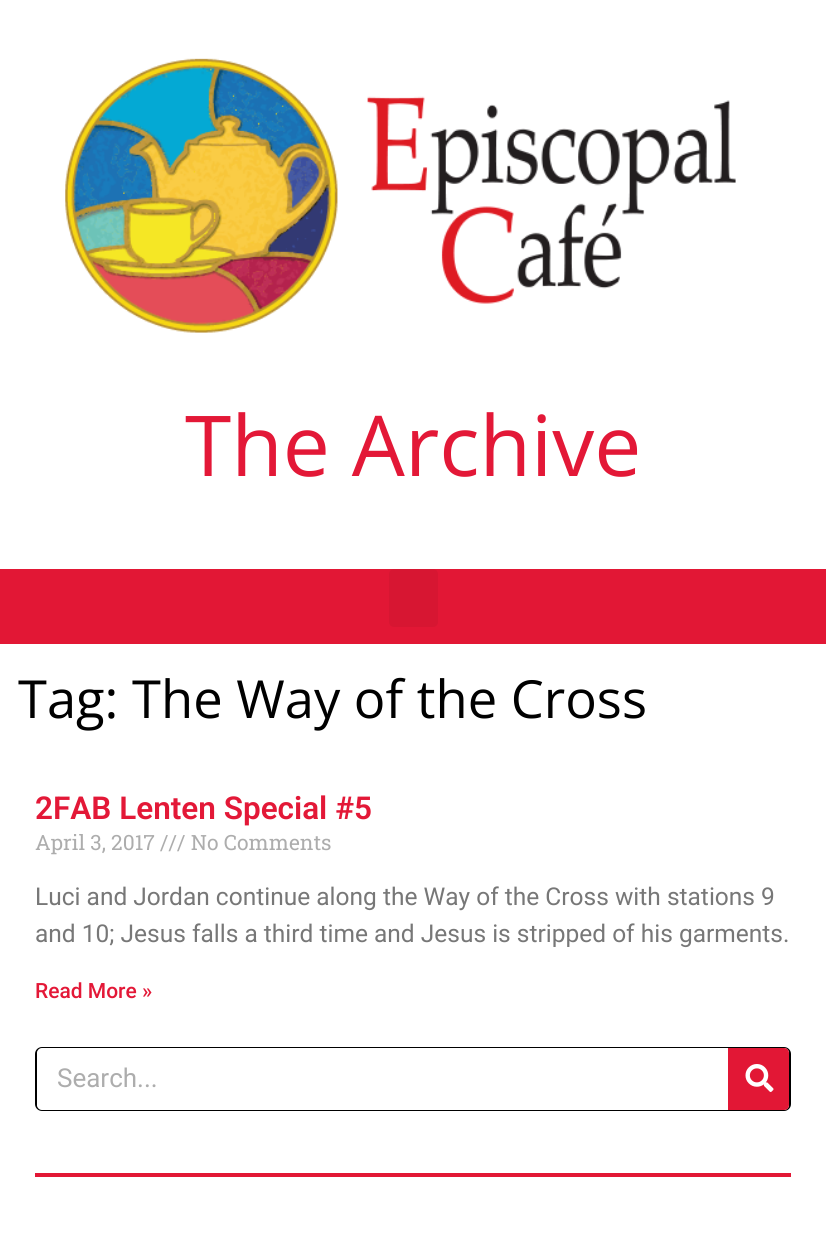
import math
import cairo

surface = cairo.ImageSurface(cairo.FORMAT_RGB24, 826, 1244)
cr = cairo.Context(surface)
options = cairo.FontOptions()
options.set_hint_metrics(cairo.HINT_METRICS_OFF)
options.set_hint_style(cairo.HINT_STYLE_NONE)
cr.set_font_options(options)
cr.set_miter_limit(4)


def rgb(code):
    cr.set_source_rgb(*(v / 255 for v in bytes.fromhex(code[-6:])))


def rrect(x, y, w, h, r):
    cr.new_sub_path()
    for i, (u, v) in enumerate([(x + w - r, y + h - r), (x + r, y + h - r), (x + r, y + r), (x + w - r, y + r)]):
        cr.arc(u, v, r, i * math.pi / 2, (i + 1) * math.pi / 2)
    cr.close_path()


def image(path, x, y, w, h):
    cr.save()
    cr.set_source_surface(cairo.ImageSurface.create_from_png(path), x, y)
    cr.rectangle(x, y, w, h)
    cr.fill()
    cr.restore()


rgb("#ffffff")
cr.paint()
image("img/1.png", 65, 58, 671, 275)
rgb("#e21735")
cr.rectangle(0, 569, 826, 75)
cr.fill()
rgb("#d71632")
rrect(389, 569, 49, 58, 5)
cr.fill()
rrect(36, 1048, 754, 62, 6)
rgb("#000000")
cr.stroke()
rgb("#ffffff")
rrect(37, 1048, 752, 62, 5)
cr.fill()
rgb("#e21735")
cr.new_path()
cr.move_to(728, 1048)
cr.line_to(784, 1048)
cr.curve_to(787, 1048, 789, 1050, 789, 1053)
cr.line_to(789, 1105)
cr.curve_to(789, 1108, 787, 1110, 784, 1110)
cr.line_to(728, 1110)
cr.close_path()
cr.fill()
image("img/2.png", 745, 1064, 29, 28)
cr.rectangle(35, 1173, 756, 4)
cr.fill()
cr.select_font_face("Open Sans")
cr.set_font_size(84)
rgb("#e31837")
cr.move_to(185, 476)
cr.show_text("The Archive")
cr.set_font_size(52.5)
rgb("#000000")
cr.move_to(18, 718)
cr.show_text("Tag: The Way of the Cross")
cr.select_font_face("Roboto SemiBold")
cr.set_font_size(31.5)
rgb("#e31837")
cr.move_to(35, 819)
cr.show_text("2FAB Lenten Special #5")
cr.select_font_face("Roboto Slab")
cr.set_font_size(21)
rgb("#adadad")
cr.move_to(35, 850)
cr.show_text("April 3, 2017 /// No Comments")
cr.select_font_face("Roboto")
cr.set_font_size(24.5)
rgb("#777777")
cr.move_to(35, 905)
cr.show_text("Luci and Jordan continue along the Way of the Cross with stations 9")
cr.move_to(35, 942)
cr.show_text("and 10; Jesus falls a third time and Jesus is stripped of his garments.")
cr.select_font_face("Roboto Medium")
cr.set_font_size(21)
rgb("#e31837")
cr.move_to(35, 998)
cr.show_text("Read More »")
cr.select_font_face("Roboto")
cr.set_font_size(26)
rgb("#adadad")
cr.move_to(57, 1087)
cr.show_text("Search...")
surface.write_to_png("page.png")
